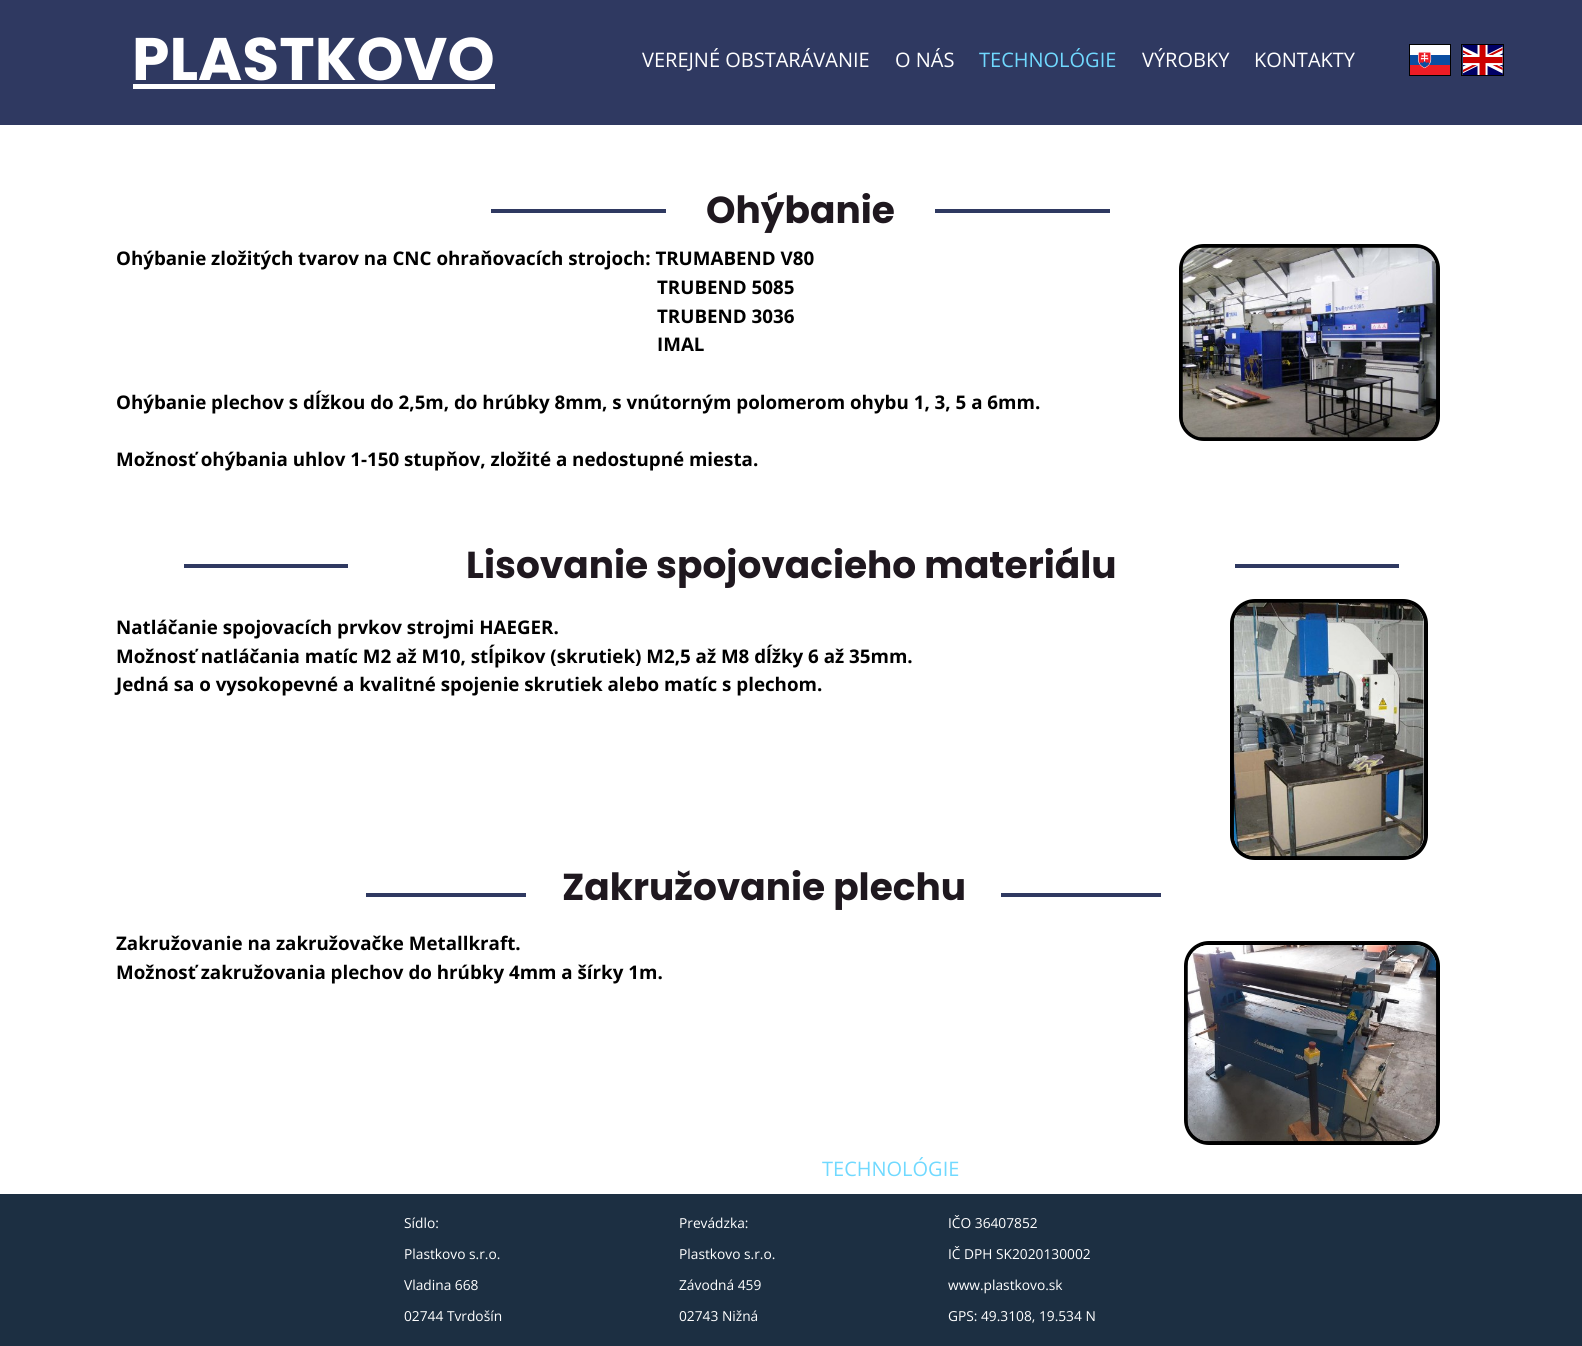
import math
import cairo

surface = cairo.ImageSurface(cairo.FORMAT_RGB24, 1582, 1346)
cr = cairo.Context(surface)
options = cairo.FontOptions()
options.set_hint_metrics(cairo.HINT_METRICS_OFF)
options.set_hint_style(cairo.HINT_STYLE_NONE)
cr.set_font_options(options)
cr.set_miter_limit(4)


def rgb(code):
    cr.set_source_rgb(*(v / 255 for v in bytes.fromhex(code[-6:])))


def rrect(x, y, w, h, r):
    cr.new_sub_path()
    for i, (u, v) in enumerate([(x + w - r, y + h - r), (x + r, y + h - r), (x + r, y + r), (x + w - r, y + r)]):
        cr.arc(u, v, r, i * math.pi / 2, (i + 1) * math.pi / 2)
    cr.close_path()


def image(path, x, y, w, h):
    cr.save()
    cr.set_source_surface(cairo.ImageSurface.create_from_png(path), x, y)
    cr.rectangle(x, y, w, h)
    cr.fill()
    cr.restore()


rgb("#ffffff")
cr.paint()
rgb("#2f3961")
cr.rectangle(0, 0, 1582, 125)
cr.fill()
rgb("#ffffff")
cr.rectangle(133, 84, 362, 5)
cr.fill()
image("img/1.png", 1410, 45, 40, 30)
cr.rectangle(1409.5, 44.5, 41, 31)
rgb("#000000")
cr.set_line_width(1)
cr.stroke()
image("img/2.png", 1463, 45, 40, 30)
cr.rectangle(1461.5, 44.5, 42, 31)
cr.stroke()
rgb("#2f3961")
cr.rectangle(491, 209, 175, 4)
cr.fill()
cr.rectangle(935, 209, 175, 4)
cr.fill()
rrect(1181, 246, 257, 193, 23)
rgb("#000000")
cr.set_line_width(4)
cr.stroke()
image("img/3.png", 1182, 247, 255, 191)
rgb("#2f3961")
cr.rectangle(184, 564, 164, 4)
cr.fill()
cr.rectangle(1235, 564, 164, 4)
cr.fill()
rrect(1232, 601, 194, 257, 23)
rgb("#000000")
cr.stroke()
image("img/4.png", 1233, 602, 191, 255)
rgb("#2f3961")
cr.rectangle(366, 893, 160, 4)
cr.fill()
cr.rectangle(1001, 893, 160, 4)
cr.fill()
rrect(1186, 943, 252, 200, 23)
rgb("#000000")
cr.stroke()
image("img/5.png", 1187, 945, 250, 197)
rgb("#1c2f42")
cr.rectangle(0, 1194, 1582, 152)
cr.fill()
cr.select_font_face("Poppins", cairo.FONT_SLANT_NORMAL, cairo.FONT_WEIGHT_BOLD)
cr.set_font_size(60)
rgb("#ffffff")
cr.move_to(132, 80)
cr.show_text("PLASTKOVO")
cr.select_font_face("Open Sans")
cr.set_font_size(20)
cr.move_to(642, 67)
cr.show_text("VEREJNÉ OBSTARÁVANIE")
cr.move_to(895, 67)
cr.show_text("O NÁS")
rgb("#70d9ff")
cr.move_to(979, 67)
cr.show_text("TECHNOLÓGIE")
rgb("#ffffff")
cr.move_to(1142, 67)
cr.show_text("VÝROBKY")
cr.move_to(1254, 67)
cr.show_text("KONTAKTY")
cr.select_font_face("Poppins", cairo.FONT_SLANT_NORMAL, cairo.FONT_WEIGHT_BOLD)
cr.set_font_size(37.5)
rgb("#1f181f")
cr.move_to(706, 223)
cr.show_text("Ohýbanie")
cr.select_font_face("Open Sans", cairo.FONT_SLANT_NORMAL, cairo.FONT_WEIGHT_BOLD)
cr.set_font_size(18.75)
rgb("#000000")
for x, y, s in [
    (116, 265, "Ohýbanie zložitých tvarov na CNC ohraňovacích strojoch: TRUMABEND V80"),
    (657, 294, "TRUBEND 5085"),
    (657, 323, "TRUBEND 3036"),
    (657, 351, "IMAL"),
    (116, 409, "Ohýbanie plechov s dĺžkou do 2,5m, do hrúbky 8mm, s vnútorným polomerom ohybu 1, 3, 5 a 6mm."),
    (116, 466, "Možnosť ohýbania uhlov 1-150 stupňov, zložité a nedostupné miesta."),
]:
    cr.move_to(x, y)
    cr.show_text(s)
cr.select_font_face("Poppins", cairo.FONT_SLANT_NORMAL, cairo.FONT_WEIGHT_BOLD)
cr.set_font_size(37.5)
rgb("#1f181f")
cr.move_to(466, 578)
cr.show_text("Lisovanie spojovacieho materiálu")
cr.select_font_face("Open Sans", cairo.FONT_SLANT_NORMAL, cairo.FONT_WEIGHT_BOLD)
cr.set_font_size(18.75)
rgb("#000000")
for x, y, s in [
    (116, 634, "Natláčanie spojovacích prvkov strojmi HAEGER."),
    (116, 663, "Možnosť natláčania matíc M2 až M10, stĺpikov (skrutiek) M2,5 až M8 dĺžky 6 až 35mm."),
    (116, 691, "Jedná sa o vysokopevné a kvalitné spojenie skrutiek alebo matíc s plechom."),
]:
    cr.move_to(x, y)
    cr.show_text(s)
cr.select_font_face("Poppins", cairo.FONT_SLANT_NORMAL, cairo.FONT_WEIGHT_BOLD)
cr.set_font_size(37.5)
rgb("#1f181f")
cr.move_to(562, 900)
cr.show_text("Zakružovanie plechu")
cr.select_font_face("Open Sans", cairo.FONT_SLANT_NORMAL, cairo.FONT_WEIGHT_BOLD)
cr.set_font_size(18.75)
rgb("#000000")
cr.move_to(116, 950)
cr.show_text("Zakružovanie na zakružovačke Metallkraft.")
cr.move_to(116, 979)
cr.show_text("Možnosť zakružovania plechov do hrúbky 4mm a šírky 1m.")
cr.select_font_face("Open Sans")
cr.set_font_size(20)
rgb("#70d9ff")
cr.move_to(822, 1176)
cr.show_text("TECHNOLÓGIE")
cr.set_font_size(13.75)
rgb("#ffffff")
for x, y, s in [
    (404, 1228, "Sídlo:"),
    (404, 1259, "Plastkovo s.r.o."),
    (404, 1290, "Vladina 668"),
    (404, 1321, "02744 Tvrdošín"),
    (679, 1228, "Prevádzka:"),
    (679, 1259, "Plastkovo s.r.o."),
    (679, 1290, "Závodná 459"),
    (679, 1321, "02743 Nižná"),
    (948, 1228, "IČO 36407852"),
    (948, 1259, "IČ DPH SK2020130002"),
    (948, 1290, "www.plastkovo.sk"),
    (948, 1321, "GPS: 49.3108, 19.534 N"),
]:
    cr.move_to(x, y)
    cr.show_text(s)
surface.write_to_png("page.png")
